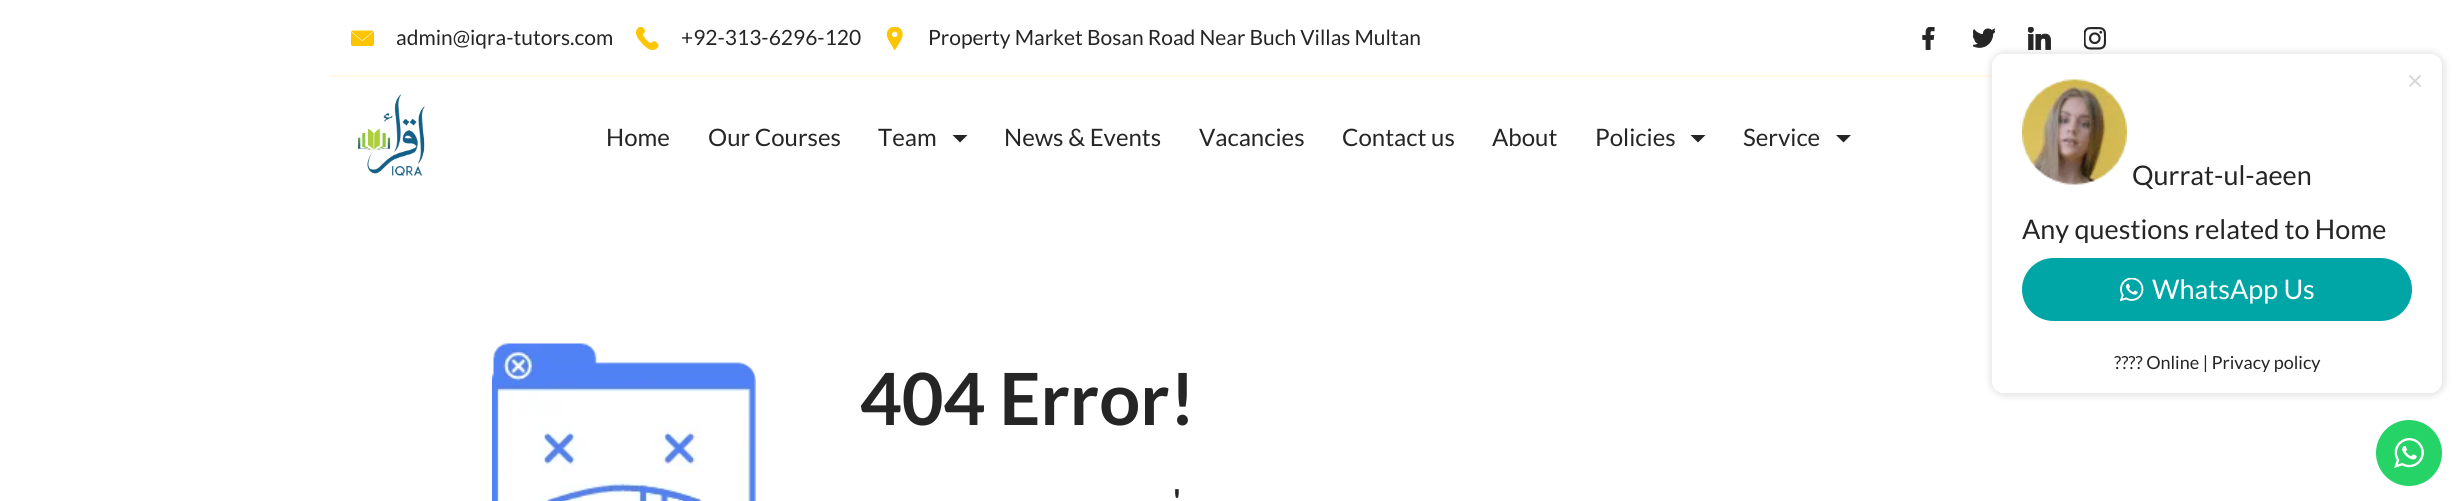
import math
import cairo

surface = cairo.ImageSurface(cairo.FORMAT_RGB24, 2456, 501)
cr = cairo.Context(surface)
options = cairo.FontOptions()
options.set_hint_metrics(cairo.HINT_METRICS_OFF)
options.set_hint_style(cairo.HINT_STYLE_NONE)
cr.set_font_options(options)
cr.set_miter_limit(4)


def rgb(code):
    cr.set_source_rgb(*(v / 255 for v in bytes.fromhex(code[-6:])))


def rrect(x, y, w, h, r):
    cr.new_sub_path()
    for i, (u, v) in enumerate([(x + w - r, y + h - r), (x + r, y + h - r), (x + r, y + r), (x + w - r, y + r)]):
        cr.arc(u, v, r, i * math.pi / 2, (i + 1) * math.pi / 2)
    cr.close_path()


def soft_shadow(x, y, w, h, r, blur, alpha):
    cr.push_group_with_content(cairo.CONTENT_ALPHA)
    cr.set_operator(cairo.OPERATOR_SOURCE)
    for i in range(15, -16, -2):
        e = blur * i / 6
        if min(w, h) + 2 * e > 0:
            cr.set_source_rgba(0, 0, 0, alpha * math.erfc((i - 1) / 8.5) / 2)
            rrect(x - e, y - e, w + 2 * e, h + 2 * e, max(0, min(r + e + blur * .6, min(w, h) / 2 + e)))
            cr.fill()
    cr.mask(cr.pop_group())


def image(path, x, y, w, h):
    cr.save()
    cr.set_source_surface(cairo.ImageSurface.create_from_png(path), x, y)
    cr.rectangle(x, y, w, h)
    cr.fill()
    cr.restore()


rgb("#ffffff")
cr.paint()
image("img/1.png", 351, 30, 23, 16)
image("img/2.png", 636, 27, 23, 23)
image("img/3.png", 886, 27, 17, 23)
image("img/4.png", 1922, 27, 13, 23)
image("img/5.png", 1973, 28, 22, 20)
image("img/6.png", 2028, 27, 23, 23)
image("img/7.png", 2084, 27, 22, 23)
rgb("#fff9e6")
cr.rectangle(329, 75, 1663, 2)
cr.fill()
image("img/8.png", 358, 94, 67, 82)
rgb("#252525")
cr.new_path()
cr.move_to(960, 142.5)
cr.line_to(952.5, 135)
cr.line_to(967.5, 135)
cr.close_path()
cr.fill()
cr.new_path()
cr.move_to(1698, 142.5)
cr.line_to(1690.5, 135)
cr.line_to(1705.5, 135)
cr.close_path()
cr.fill()
cr.new_path()
cr.move_to(1843.5, 142.5)
cr.line_to(1836, 135)
cr.line_to(1851, 135)
cr.close_path()
cr.fill()
image("img/9.png", 492, 343, 264, 158)
cr.save()
cr.set_fill_rule(cairo.FILL_RULE_EVEN_ODD)
cr.new_path()
cr.move_to(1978, 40)
cr.line_to(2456, 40)
cr.line_to(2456, 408)
cr.line_to(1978, 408)
cr.close_path()
cr.move_to(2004, 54)
cr.line_to(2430, 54)
cr.curve_to(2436.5, 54, 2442, 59.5, 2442, 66)
cr.line_to(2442, 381)
cr.curve_to(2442, 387.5, 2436.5, 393, 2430, 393)
cr.line_to(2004, 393)
cr.curve_to(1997.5, 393, 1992, 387.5, 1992, 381)
cr.line_to(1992, 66)
cr.curve_to(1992, 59.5, 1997.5, 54, 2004, 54)
cr.close_path()
cr.clip()
rgb("#000000")
soft_shadow(1991, 53, 453, 342, 14, 4, 0.14)
cr.restore()
rgb("#ffffff")
cr.new_path()
cr.move_to(2004, 54)
cr.line_to(2430, 54)
cr.curve_to(2436.5, 54, 2442, 59.5, 2442, 66)
cr.line_to(2442, 243)
cr.line_to(1992, 243)
cr.line_to(1992, 66)
cr.curve_to(1992, 59.5, 1997.5, 54, 2004, 54)
cr.close_path()
cr.fill()
image("img/10.png", 2409, 75, 12, 12)
image("img/11.png", 2022, 79, 105, 106)
rgb("#00a6a6")
rrect(2023, 259, 388, 61, 30.5)
cr.fill_preserve()
cr.stroke()
image("img/12.png", 2120, 278, 24, 24)
rgb("#ffffff")
cr.new_path()
cr.move_to(1992, 333)
cr.line_to(2442, 333)
cr.line_to(2442, 381)
cr.curve_to(2442, 387.5, 2436.5, 393, 2430, 393)
cr.line_to(2004, 393)
cr.curve_to(1997.5, 393, 1992, 387.5, 1992, 381)
cr.close_path()
cr.fill()
rgb("#25d366")
cr.arc(2409, 453, 33, 0, 2 * math.pi)
cr.fill()
image("img/13.png", 2394, 438, 30, 30)
cr.select_font_face("Lato")
cr.set_font_size(21)
rgb("#252525")
for x, y, s in [
    (396, 45, "admin@iqra-tutors.com"),
    (681, 45, "+92-313-6296-120"),
    (928, 45, "Property Market Bosan Road Near Buch Villas Multan"),
]:
    cr.move_to(x, y)
    cr.show_text(s)
cr.set_font_size(24)
for x, y, s in [
    (606, 146, "Home"),
    (708, 146, "Our Courses"),
    (878, 146, "Team"),
    (1004, 146, "News & Events"),
    (1199, 146, "Vacancies"),
    (1342, 146, "Contact us"),
    (1492, 146, "About"),
    (1595, 146, "Policies"),
    (1743, 146, "Service"),
]:
    cr.move_to(x, y)
    cr.show_text(s)
cr.select_font_face("Lato", cairo.FONT_SLANT_NORMAL, cairo.FONT_WEIGHT_BOLD)
cr.set_font_size(72)
cr.move_to(860, 425)
cr.show_text("404 Error!")
cr.set_font_size(33)
cr.move_to(1173, 513)
cr.show_text("'")
cr.select_font_face("Lato")
cr.set_font_size(27)
cr.move_to(2132, 185)
cr.show_text("Qurrat-ul-aeen")
cr.save()
cr.rectangle(1992, 53, 450, 190)
cr.clip()
cr.move_to(2022, 239)
cr.show_text("Any questions related to Home")
cr.restore()
rgb("#ffffff")
cr.move_to(2152, 299)
cr.show_text("WhatsApp Us")
cr.set_font_size(18)
rgb("#252525")
cr.move_to(2114, 369)
cr.show_text("???? Online | Privacy policy")
surface.write_to_png("page.png")
